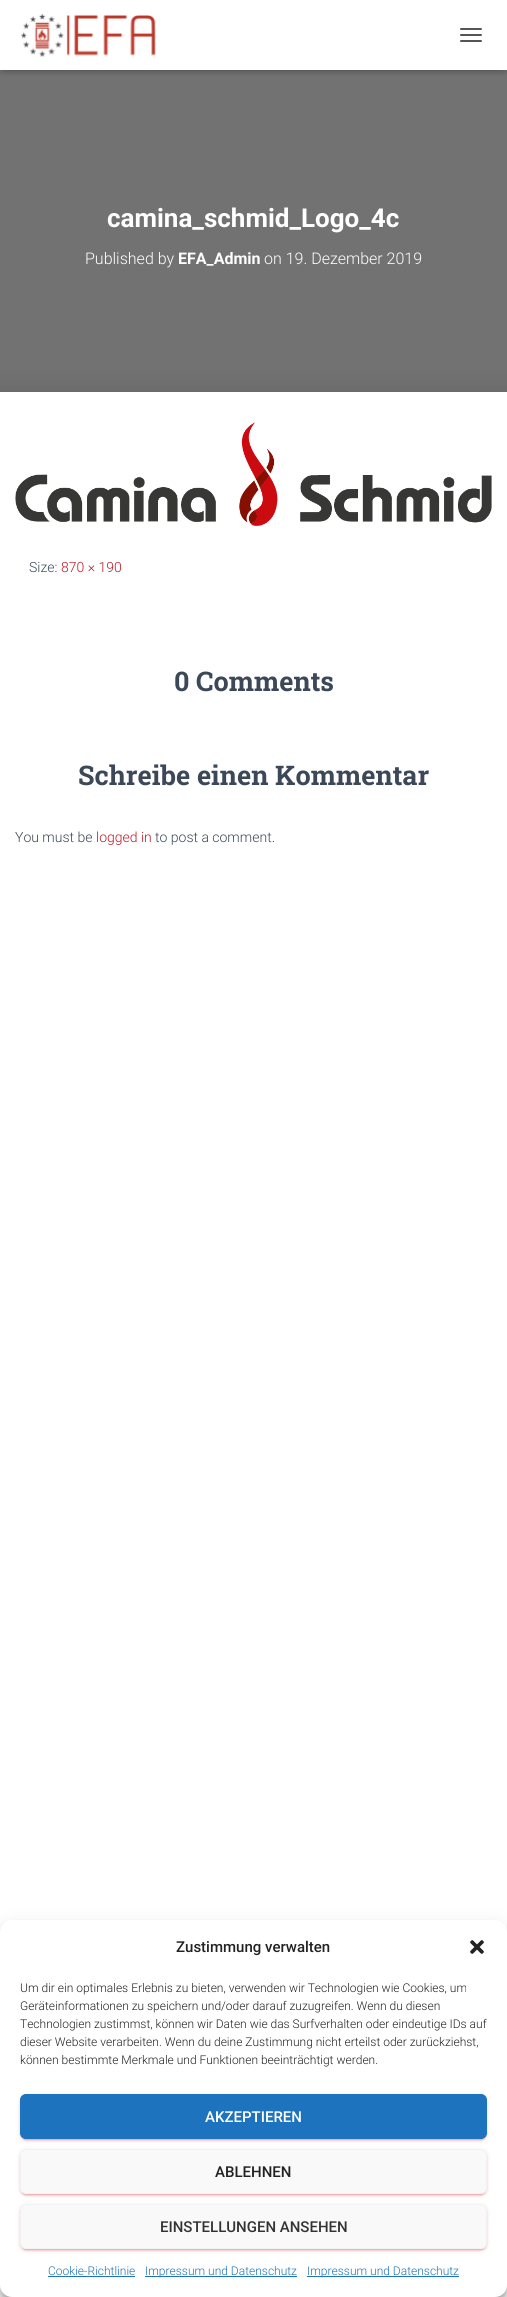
import math
import cairo

surface = cairo.ImageSurface(cairo.FORMAT_RGB24, 507, 2297)
cr = cairo.Context(surface)
options = cairo.FontOptions()
options.set_hint_metrics(cairo.HINT_METRICS_OFF)
options.set_hint_style(cairo.HINT_STYLE_NONE)
cr.set_font_options(options)
cr.set_miter_limit(4)


def rgb(code):
    cr.set_source_rgb(*(v / 255 for v in bytes.fromhex(code[-6:])))


def rrect(x, y, w, h, r):
    cr.new_sub_path()
    for i, (u, v) in enumerate([(x + w - r, y + h - r), (x + r, y + h - r), (x + r, y + r), (x + w - r, y + r)]):
        cr.arc(u, v, r, i * math.pi / 2, (i + 1) * math.pi / 2)
    cr.close_path()


def soft_shadow(x, y, w, h, r, blur, alpha):
    cr.push_group_with_content(cairo.CONTENT_ALPHA)
    cr.set_operator(cairo.OPERATOR_SOURCE)
    for i in range(15, -16, -2):
        e = blur * i / 6
        if min(w, h) + 2 * e > 0:
            cr.set_source_rgba(0, 0, 0, alpha * math.erfc((i - 1) / 8.5) / 2)
            rrect(x - e, y - e, w + 2 * e, h + 2 * e, max(0, min(r + e + blur * .6, min(w, h) / 2 + e)))
            cr.fill()
    cr.mask(cr.pop_group())


def image(path, x, y, w, h):
    cr.save()
    cr.set_source_surface(cairo.ImageSurface.create_from_png(path), x, y)
    cr.rectangle(x, y, w, h)
    cr.fill()
    cr.restore()


rgb("#ffffff")
cr.paint()
rgb("#727272")
cr.rectangle(0, 70, 507, 322)
cr.fill()
rgb("#000000")
soft_shadow(2, 6, 503, 66, 0, 2.5, 0.1)
soft_shadow(0, 1, 507, 70, 0, 5, 0.12)
soft_shadow(6, 7, 495, 58, 0, 5, 0.42)
rgb("#ffffff")
cr.rectangle(0, 0, 507, 70)
cr.fill()
image("img/1.png", 21, 14, 135, 43)
rgb("#555555")
rrect(460, 28, 22, 2, 1)
cr.fill()
rrect(460, 34, 22, 2, 1)
cr.fill()
rrect(460, 40, 22, 2, 1)
cr.fill()
rgb("#000000")
soft_shadow(-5, 393, 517, 1724, 0, 15, 0.12)
rgb("#ffffff")
cr.rectangle(0, 392, 507, 1540)
cr.fill()
image("img/2.png", 15, 422, 477, 104)
rgb("#000000")
soft_shadow(0, 1926, 507, 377, 12, 3, 0.23)
soft_shadow(0, 1930, 507, 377, 12, 10, 0.19)
rgb("#ffffff")
rrect(0, 1920, 507, 377, 12)
cr.fill()
image("img/3.png", 470, 1940, 14, 14)
rgb("#bf1b26")
soft_shadow(20, 2095, 467, 45, 6, 2.5, 0.12)
soft_shadow(22, 2099, 463, 41, 4, 0.5, 0.2)
soft_shadow(20, 2096, 467, 45, 6, 1, 0.14)
rgb("#1e73be")
rrect(20.5, 2094.5, 466, 44, 5.5)
cr.fill_preserve()
cr.set_line_width(1)
cr.stroke()
rgb("#bf1b26")
soft_shadow(20, 2150, 467, 45, 6, 2.5, 0.12)
soft_shadow(22, 2154, 463, 41, 4, 0.5, 0.2)
soft_shadow(20, 2151, 467, 45, 6, 1, 0.14)
rgb("#f9f9f9")
rrect(20.5, 2149.5, 466, 44, 5.5)
cr.fill_preserve()
rgb("#f2f2f2")
cr.stroke()
rgb("#bf1b26")
soft_shadow(20, 2205, 467, 45, 6, 2.5, 0.12)
soft_shadow(22, 2209, 463, 41, 4, 0.5, 0.2)
soft_shadow(20, 2206, 467, 45, 6, 1, 0.14)
rgb("#f9f9f9")
rrect(20.5, 2204.5, 466, 44, 5.5)
cr.fill_preserve()
rgb("#f2f2f2")
cr.stroke()
for x, y, w, h, color in [
    (48, 2276, 87, 1, "#1e73be"),
    (145, 2276, 152, 1, "#1e73be"),
    (307, 2276, 152, 1, "#1e73be"),
]:
    rgb(color)
    cr.rectangle(x, y, w, h)
    cr.fill()
cr.select_font_face("Roboto", cairo.FONT_SLANT_NORMAL, cairo.FONT_WEIGHT_BOLD)
cr.set_font_size(26)
rgb("#ffffff")
cr.move_to(107, 227)
cr.show_text("camina_schmid_Logo_4c")
cr.select_font_face("Roboto Light")
cr.set_font_size(16)
cr.move_to(85, 264)
cr.show_text("Published by")
cr.select_font_face("Roboto", cairo.FONT_SLANT_NORMAL, cairo.FONT_WEIGHT_BOLD)
cr.move_to(178, 264)
cr.show_text("EFA_Admin")
cr.select_font_face("Roboto Light")
cr.move_to(264, 264)
cr.show_text("on 19. Dezember 2019")
cr.set_font_size(14)
rgb("#3c4858")
cr.move_to(29, 572)
cr.show_text("Size:")
rgb("#bf1b26")
cr.move_to(61, 572)
cr.show_text("870 × 190")
cr.select_font_face("Roboto Slab", cairo.FONT_SLANT_NORMAL, cairo.FONT_WEIGHT_BOLD)
cr.set_font_size(27)
rgb("#3c4858")
cr.move_to(174, 691)
cr.show_text("0 Comments")
cr.move_to(78, 785)
cr.show_text("Schreibe einen Kommentar")
cr.select_font_face("Roboto Light")
cr.set_font_size(14)
cr.move_to(15, 842)
cr.show_text("You must be")
rgb("#bf1b26")
cr.move_to(96, 842)
cr.show_text("logged in")
rgb("#3c4858")
cr.move_to(155, 842)
cr.show_text("to post a comment.")
cr.select_font_face("Roboto Medium")
cr.set_font_size(15)
rgb("#222222")
cr.move_to(176, 1952)
cr.show_text("Zustimmung verwalten")
cr.select_font_face("Roboto Light")
cr.set_font_size(12)
for x, y, s in [
    (20, 1992, "Um dir ein optimales Erlebnis zu bieten, verwenden wir Technologien wie Cookies, um"),
    (20, 2010, "Geräteinformationen zu speichern und/oder darauf zuzugreifen. Wenn du diesen"),
    (20, 2028, "Technologien zustimmst, können wir Daten wie das Surfverhalten oder eindeutige IDs auf"),
    (20, 2046, "dieser Website verarbeiten. Wenn du deine Zustimmung nicht erteilst oder zurückziehst,"),
    (20, 2064, "können bestimmte Merkmale und Funktionen beeinträchtigt werden."),
]:
    cr.move_to(x, y)
    cr.show_text(s)
cr.select_font_face("Roboto Medium")
cr.set_font_size(15)
rgb("#ffffff")
cr.move_to(205, 2122)
cr.show_text("AKZEPTIEREN")
rgb("#222222")
cr.move_to(215, 2177)
cr.show_text("ABLEHNEN")
rgb("#333333")
cr.move_to(160, 2232)
cr.show_text("EINSTELLUNGEN ANSEHEN")
cr.select_font_face("Roboto Light")
cr.set_font_size(12)
rgb("#1e73be")
for x, y, s in [
    (48, 2275, "Cookie-Richtlinie"),
    (145, 2275, "Impressum und Datenschutz"),
    (307, 2275, "Impressum und Datenschutz"),
]:
    cr.move_to(x, y)
    cr.show_text(s)
surface.write_to_png("page.png")
